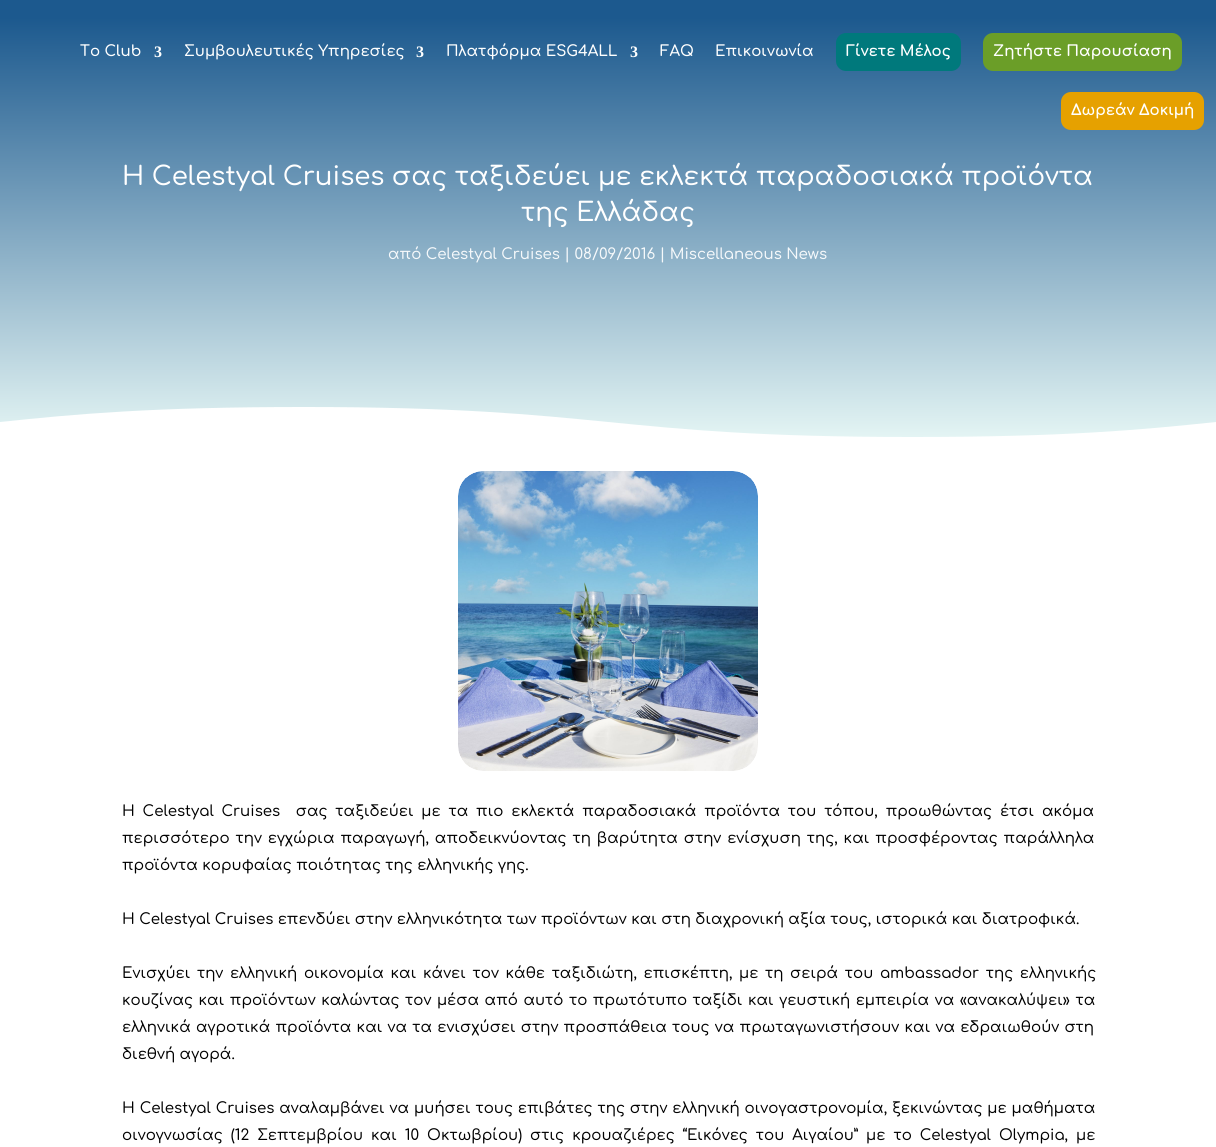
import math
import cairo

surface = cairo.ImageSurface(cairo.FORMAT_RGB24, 1216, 1147)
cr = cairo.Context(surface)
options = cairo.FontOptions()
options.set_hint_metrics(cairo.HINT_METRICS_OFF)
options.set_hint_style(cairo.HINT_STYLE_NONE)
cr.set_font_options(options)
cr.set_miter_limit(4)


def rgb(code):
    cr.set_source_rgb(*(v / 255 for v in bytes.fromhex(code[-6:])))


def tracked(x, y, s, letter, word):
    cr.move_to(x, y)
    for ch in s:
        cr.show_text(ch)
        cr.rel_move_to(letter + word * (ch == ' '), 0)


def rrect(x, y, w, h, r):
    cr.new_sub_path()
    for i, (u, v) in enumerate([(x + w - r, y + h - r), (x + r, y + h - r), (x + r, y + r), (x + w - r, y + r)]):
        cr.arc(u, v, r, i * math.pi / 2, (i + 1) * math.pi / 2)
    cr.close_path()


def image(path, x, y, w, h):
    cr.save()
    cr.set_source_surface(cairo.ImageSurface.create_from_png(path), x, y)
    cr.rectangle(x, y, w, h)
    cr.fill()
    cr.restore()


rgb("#ffffff")
cr.paint()
gradient = cairo.LinearGradient(608, 0, 608, 447)
gradient.add_color_stop_rgba(0.04, 0.11, 0.349, 0.557, 1)
gradient.add_color_stop_rgba(1, 0.91, 0.973, 0.965, 1)
cr.set_source(gradient)
cr.rectangle(0, 0, 1216, 437)
cr.fill()
rgb("#00797c")
rrect(836, 33, 125, 38, 10)
cr.fill()
rgb("#6b9e28")
rrect(983, 33, 199, 38, 10)
cr.fill()
rgb("#e6a100")
rrect(1061, 92, 143, 38, 10)
cr.fill()
rgb("#ffffff")
cr.new_path()
cr.move_to(304, 407)
cr.curve_to(608, 407, 608, 437, 912, 437)
cr.curve_to(1064, 437, 1140, 430, 1216, 422)
cr.line_to(1216, 447)
cr.line_to(0, 447)
cr.line_to(0, 422)
cr.curve_to(76, 414, 152, 407, 304, 407)
cr.close_path()
cr.fill()
image("img/1.png", 458, 471, 300, 300)
cr.select_font_face("Comfortaa SemiBold")
cr.set_font_size(15)
cr.move_to(80, 56)
cr.show_text("Το Club")
cr.select_font_face("Liberation Serif", cairo.FONT_SLANT_NORMAL, cairo.FONT_WEIGHT_BOLD)
cr.set_font_size(16)
cr.move_to(154, 57)
cr.show_text("3")
cr.select_font_face("Comfortaa SemiBold")
cr.set_font_size(15)
cr.move_to(184, 56)
cr.show_text("Συμβουλευτικές Υπηρεσίες")
cr.select_font_face("Liberation Serif", cairo.FONT_SLANT_NORMAL, cairo.FONT_WEIGHT_BOLD)
cr.set_font_size(16)
cr.move_to(416, 57)
cr.show_text("3")
cr.select_font_face("Comfortaa SemiBold")
cr.set_font_size(15)
cr.move_to(446, 56)
cr.show_text("Πλατφόρμα ESG4ALL")
cr.select_font_face("Liberation Serif", cairo.FONT_SLANT_NORMAL, cairo.FONT_WEIGHT_BOLD)
cr.set_font_size(16)
cr.move_to(630, 57)
cr.show_text("3")
cr.select_font_face("Comfortaa SemiBold")
cr.set_font_size(15)
cr.move_to(660, 56)
cr.show_text("FAQ")
cr.move_to(715, 56)
cr.show_text("Επικοινωνία")
cr.select_font_face("Comfortaa", cairo.FONT_SLANT_NORMAL, cairo.FONT_WEIGHT_BOLD)
for x, y, s in [
    (846, 56, "Γίνετε Μέλος"),
    (993, 56, "Ζητήστε Παρουσίαση"),
    (1071, 115, "Δωρεάν Δοκιμή"),
]:
    cr.move_to(x, y)
    cr.show_text(s)
cr.select_font_face("Comfortaa Medium")
cr.set_font_size(26)
cr.move_to(122, 185)
cr.show_text("Η Celestyal Cruises σας ταξιδεύει με εκλεκτά παραδοσιακά προϊόντα")
cr.move_to(521, 221)
cr.show_text("της Ελλάδας")
cr.set_font_size(15)
rgb("#f6f9fb")
cr.move_to(388, 259)
cr.show_text("από Celestyal Cruises | 08/09/2016 | Miscellaneous News")
rgb("#000000")
tracked(122, 816, "Η Celestyal Cruises  σας ταξιδεύει με τα πιο εκλεκτά παραδοσιακά προϊόντα του τόπου, προωθώντας έτσι ακόμα", 0, 3.4)
tracked(122, 843, "περισσότερο την εγχώρια παραγωγή, αποδεικνύοντας τη βαρύτητα στην ενίσχυση της, και προσφέροντας παράλληλα", 0, 1.5)
cr.move_to(122, 870)
cr.show_text("προϊόντα κορυφαίας ποιότητας της ελληνικής γης.")
cr.move_to(122, 924)
cr.show_text("Η Celestyal Cruises επενδύει στην ελληνικότητα των προϊόντων και στη διαχρονική αξία τους, ιστορικά και διατροφικά.")
tracked(122, 978, "Ενισχύει την ελληνική οικονομία και κάνει τον κάθε ταξιδιώτη, επισκέπτη, με τη σειρά του ambassador της ελληνικής", 0, 2.25)
tracked(122, 1005, "κουζίνας και προϊόντων καλώντας τον μέσα από αυτό το πρωτότυπο ταξίδι και γευστική εμπειρία να «ανακαλύψει» τα", 0, 1.1)
tracked(122, 1032, "ελληνικά αγροτικά προϊόντα και να τα ενισχύσει στην προσπάθεια τους να πρωταγωνιστήσουν και να εδραιωθούν στη", 0, 0.8)
cr.move_to(122, 1059)
cr.show_text("διεθνή αγορά.")
tracked(122, 1113, "Η Celestyal Cruises αναλαμβάνει να μυήσει τους επιβάτες της στην ελληνική οινογαστρονομία, ξεκινώντας με μαθήματα", 0, 0.5)
tracked(122, 1140, "οινογνωσίας (12 Σεπτεμβρίου και 10 Οκτωβρίου) στις κρουαζιέρες “Εικόνες του Αιγαίου” με το Celestyal Olympia, με", 0, 3.6)
surface.write_to_png("page.png")
